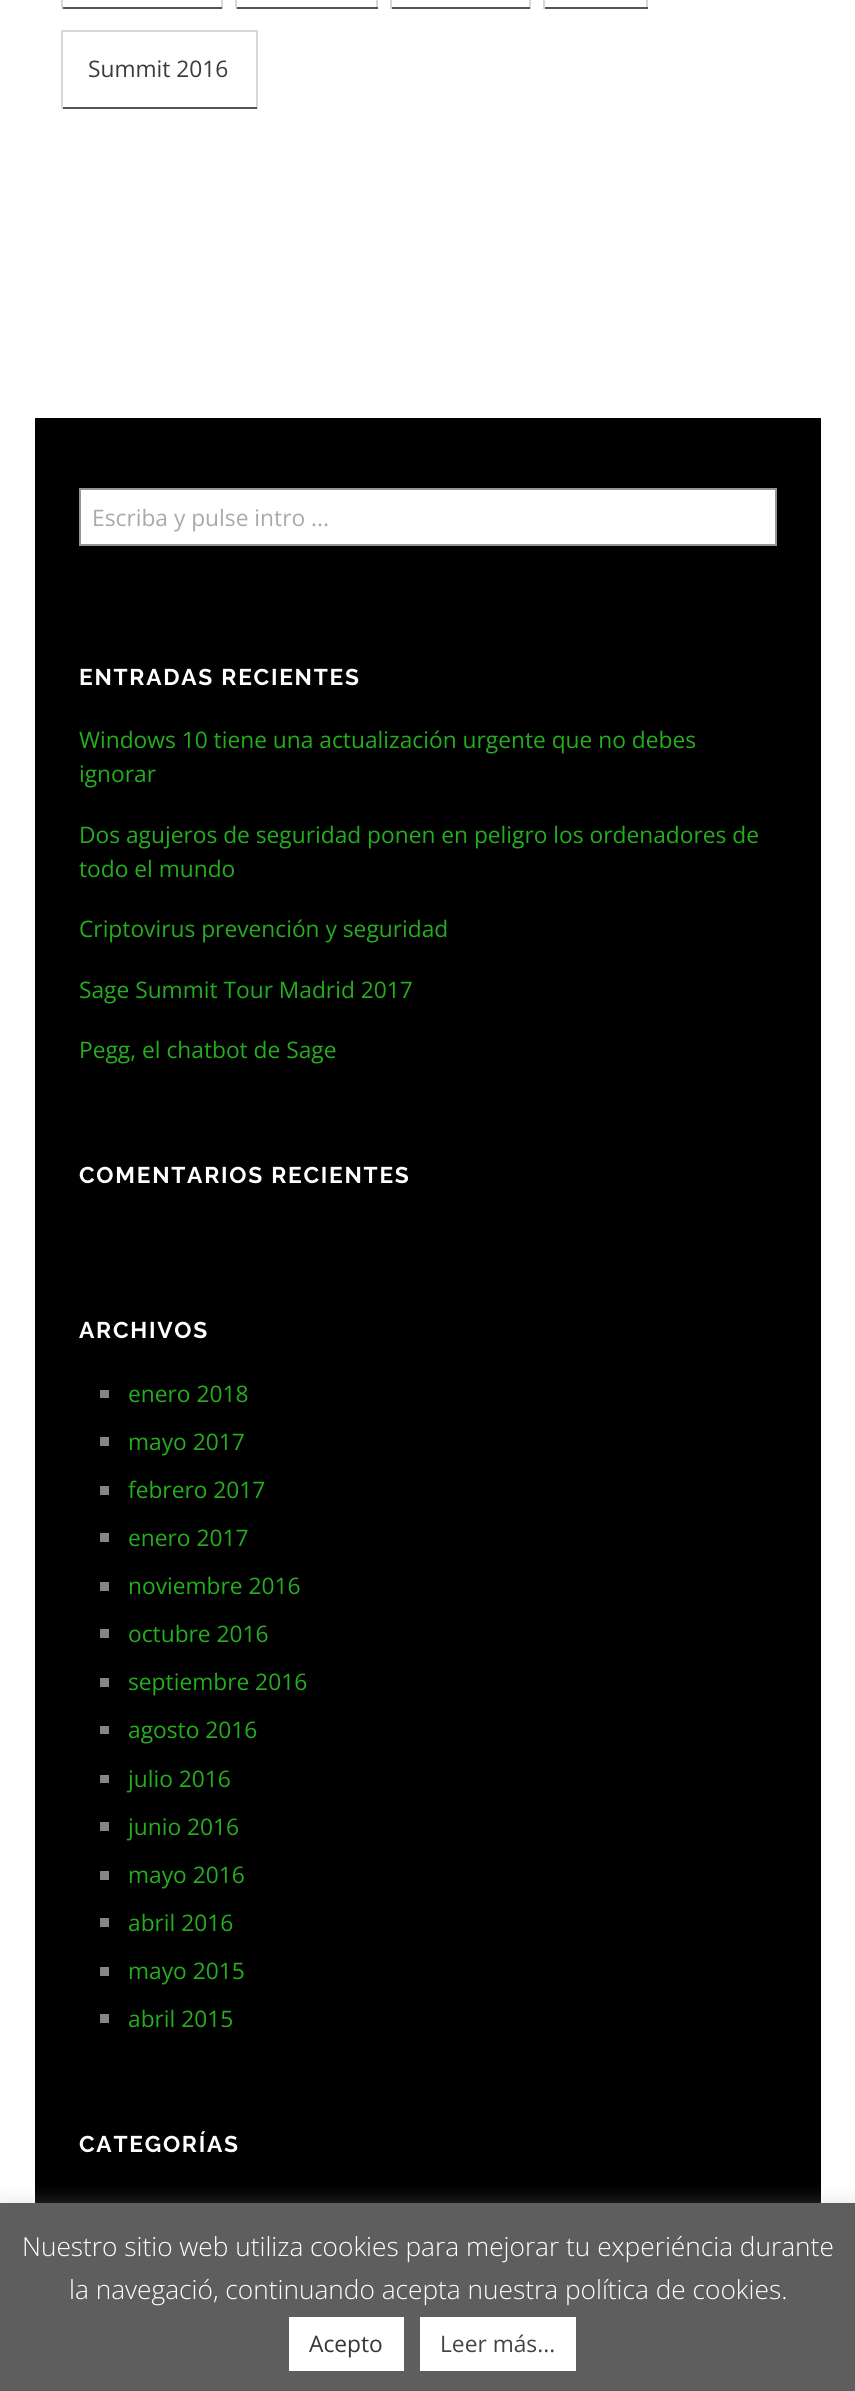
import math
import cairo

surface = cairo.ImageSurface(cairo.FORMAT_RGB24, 855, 2391)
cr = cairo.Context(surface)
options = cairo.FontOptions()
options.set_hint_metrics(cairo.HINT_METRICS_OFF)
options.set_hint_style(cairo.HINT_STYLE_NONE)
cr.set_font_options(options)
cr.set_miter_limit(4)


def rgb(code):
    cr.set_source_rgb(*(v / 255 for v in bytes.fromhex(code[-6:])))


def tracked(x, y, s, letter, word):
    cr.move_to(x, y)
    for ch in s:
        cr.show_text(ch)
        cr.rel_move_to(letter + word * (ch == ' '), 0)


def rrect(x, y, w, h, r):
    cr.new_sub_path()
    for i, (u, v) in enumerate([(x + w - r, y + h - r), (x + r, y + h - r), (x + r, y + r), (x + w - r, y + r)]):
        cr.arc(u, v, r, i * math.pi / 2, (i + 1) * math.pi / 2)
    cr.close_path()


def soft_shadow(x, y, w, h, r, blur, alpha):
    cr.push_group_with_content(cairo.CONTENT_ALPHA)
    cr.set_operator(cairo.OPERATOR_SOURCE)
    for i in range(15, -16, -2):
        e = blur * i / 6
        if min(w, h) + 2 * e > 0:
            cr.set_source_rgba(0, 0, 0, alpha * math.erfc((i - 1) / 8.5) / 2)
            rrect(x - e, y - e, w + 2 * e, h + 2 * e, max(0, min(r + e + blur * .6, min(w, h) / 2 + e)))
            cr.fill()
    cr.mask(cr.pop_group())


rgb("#ffffff")
cr.paint()
for x, y, w, h, color in [
    (221, 0, 2, 9, "#d8d8d8"),
    (61, 7, 161, 2, "#555555"),
    (61, 0, 2, 9, "#d8d8d8"),
    (376, 0, 2, 9, "#d8d8d8"),
    (235, 7, 143, 2, "#555555"),
    (235, 0, 2, 9, "#d8d8d8"),
    (529, 0, 2, 9, "#d8d8d8"),
    (390, 7, 140, 2, "#555555"),
    (390, 0, 2, 9, "#d8d8d8"),
    (646, 0, 2, 9, "#d8d8d8"),
    (543, 7, 105, 2, "#555555"),
    (543, 0, 2, 9, "#d8d8d8"),
    (61, 30, 196, 2, "#d8d8d8"),
    (256, 30, 2, 79, "#d8d8d8"),
    (61, 107, 196, 2, "#555555"),
    (61, 30, 2, 79, "#d8d8d8"),
    (35, 418, 786, 1785, "#000000"),
]:
    rgb(color)
    cr.rectangle(x, y, w, h)
    cr.fill()
rgb("#ffffff")
cr.rectangle(80, 489, 696, 56)
cr.fill_preserve()
rgb("#959595")
cr.stroke()
for x, y, w, h, color in [
    (100, 1390, 9, 8, "#868686"),
    (100, 1437, 9, 9, "#868686"),
    (100, 1486, 9, 9, "#868686"),
    (100, 1533, 9, 9, "#868686"),
    (100, 1582, 9, 9, "#868686"),
    (100, 1629, 9, 9, "#868686"),
    (100, 1678, 9, 9, "#868686"),
    (100, 1726, 9, 8, "#868686"),
    (100, 1775, 9, 8, "#868686"),
    (100, 1822, 9, 9, "#868686"),
    (100, 1871, 9, 9, "#868686"),
    (100, 1918, 9, 9, "#868686"),
    (100, 1967, 9, 9, "#868686"),
    (100, 2014, 9, 9, "#868686"),
]:
    rgb(color)
    cr.rectangle(x, y, w, h)
    cr.fill()
rgb("#acabab")
soft_shadow(0, 2202, 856, 189, 0, 9, 0.3)
for x, y, w, h, color in [
    (0, 2203, 855, 188, "#5e5e5e"),
    (289, 2317, 115, 54, "#ffffff"),
    (420, 2317, 156, 54, "#ffffff"),
]:
    rgb(color)
    cr.rectangle(x, y, w, h)
    cr.fill()
cr.select_font_face("Open Sans")
cr.set_font_size(22.75)
rgb("#3b3b3b")
cr.move_to(88, 77)
cr.show_text("Summit 2016")
rgb("#aaaaaa")
cr.move_to(92, 526)
cr.show_text("Escriba y pulse intro ...")
cr.select_font_face("Raleway", cairo.FONT_SLANT_NORMAL, cairo.FONT_WEIGHT_BOLD)
rgb("#ffffff")
tracked(79, 685, "ENTRADAS RECIENTES", 1.75, 0)
cr.select_font_face("Open Sans")
rgb("#26ad1f")
for x, y, s in [
    (79, 748, "Windows 10 tiene una actualización urgente que no debes"),
    (79, 782, "ignorar"),
    (79, 843, "Dos agujeros de seguridad ponen en peligro los ordenadores de"),
    (79, 877, "todo el mundo"),
    (79, 937, "Criptovirus prevención y seguridad"),
    (79, 998, "Sage Summit Tour Madrid 2017"),
    (79, 1058, "Pegg, el chatbot de Sage"),
]:
    cr.move_to(x, y)
    cr.show_text(s)
cr.select_font_face("Raleway", cairo.FONT_SLANT_NORMAL, cairo.FONT_WEIGHT_BOLD)
rgb("#ffffff")
tracked(79, 1183, "COMENTARIOS RECIENTES", 1.75, 0)
tracked(79, 1338, "ARCHIVOS", 1.75, 0)
cr.select_font_face("Open Sans")
rgb("#26ad1f")
for x, y, s in [
    (128, 1402, "enero 2018"),
    (128, 1450, "mayo 2017"),
    (128, 1498, "febrero 2017"),
    (128, 1546, "enero 2017"),
    (128, 1594, "noviembre 2016"),
    (128, 1642, "octubre 2016"),
    (128, 1690, "septiembre 2016"),
    (128, 1738, "agosto 2016"),
    (128, 1787, "julio 2016"),
    (128, 1835, "junio 2016"),
    (128, 1883, "mayo 2016"),
    (128, 1931, "abril 2016"),
    (128, 1979, "mayo 2015"),
    (128, 2027, "abril 2015"),
]:
    cr.move_to(x, y)
    cr.show_text(s)
cr.select_font_face("Raleway", cairo.FONT_SLANT_NORMAL, cairo.FONT_WEIGHT_BOLD)
rgb("#ffffff")
tracked(79, 2152, "CATEGORÍAS", 1.75, 0)
cr.select_font_face("Open Sans Light")
cr.set_font_size(26.25)
cr.move_to(22, 2256)
cr.show_text("Nuestro sitio web utiliza cookies para mejorar tu experiéncia durante")
cr.move_to(69, 2299)
cr.show_text("la navegació, continuando acepta nuestra política de cookies.")
cr.select_font_face("Open Sans")
cr.set_font_size(22.75)
rgb("#353535")
cr.move_to(309, 2352)
cr.show_text("Acepto")
rgb("#444444")
cr.move_to(440, 2352)
cr.show_text("Leer más...")
surface.write_to_png("page.png")
